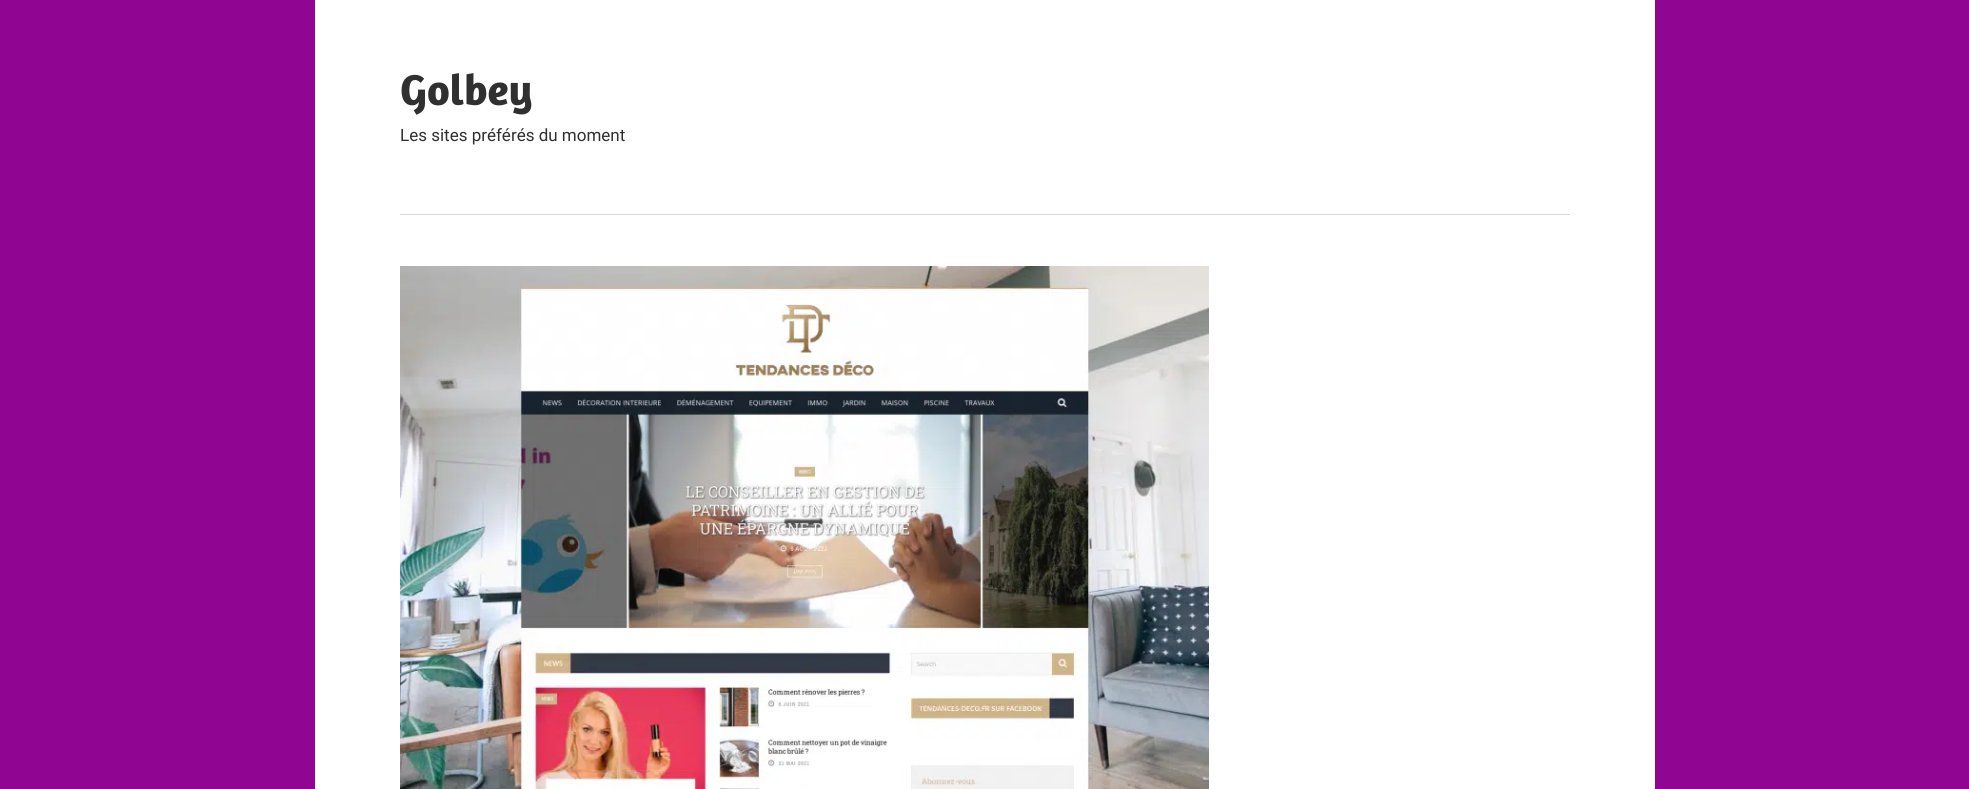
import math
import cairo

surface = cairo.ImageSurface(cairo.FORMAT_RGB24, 1969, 789)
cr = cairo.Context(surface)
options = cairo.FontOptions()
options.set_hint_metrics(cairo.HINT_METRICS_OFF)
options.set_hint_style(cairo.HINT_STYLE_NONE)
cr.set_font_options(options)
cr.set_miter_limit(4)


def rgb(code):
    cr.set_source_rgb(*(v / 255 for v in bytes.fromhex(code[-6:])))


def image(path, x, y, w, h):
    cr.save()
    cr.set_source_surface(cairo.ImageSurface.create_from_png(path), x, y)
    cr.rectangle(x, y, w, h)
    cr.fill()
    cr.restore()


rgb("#900591")
cr.paint()
rgb("#ffffff")
cr.rectangle(315, 0, 1340, 789)
cr.fill()
rgb("#d9d9d9")
cr.rectangle(400, 214, 1170, 1)
cr.fill()
image("img/1.png", 400, 266, 809, 523)
cr.select_font_face("Amaranth", cairo.FONT_SLANT_NORMAL, cairo.FONT_WEIGHT_BOLD)
cr.set_font_size(44)
rgb("#303030")
cr.move_to(400, 105)
cr.show_text("Golbey")
cr.select_font_face("Roboto")
cr.set_font_size(17)
cr.move_to(400, 141)
cr.show_text("Les sites préférés du moment")
surface.write_to_png("page.png")
